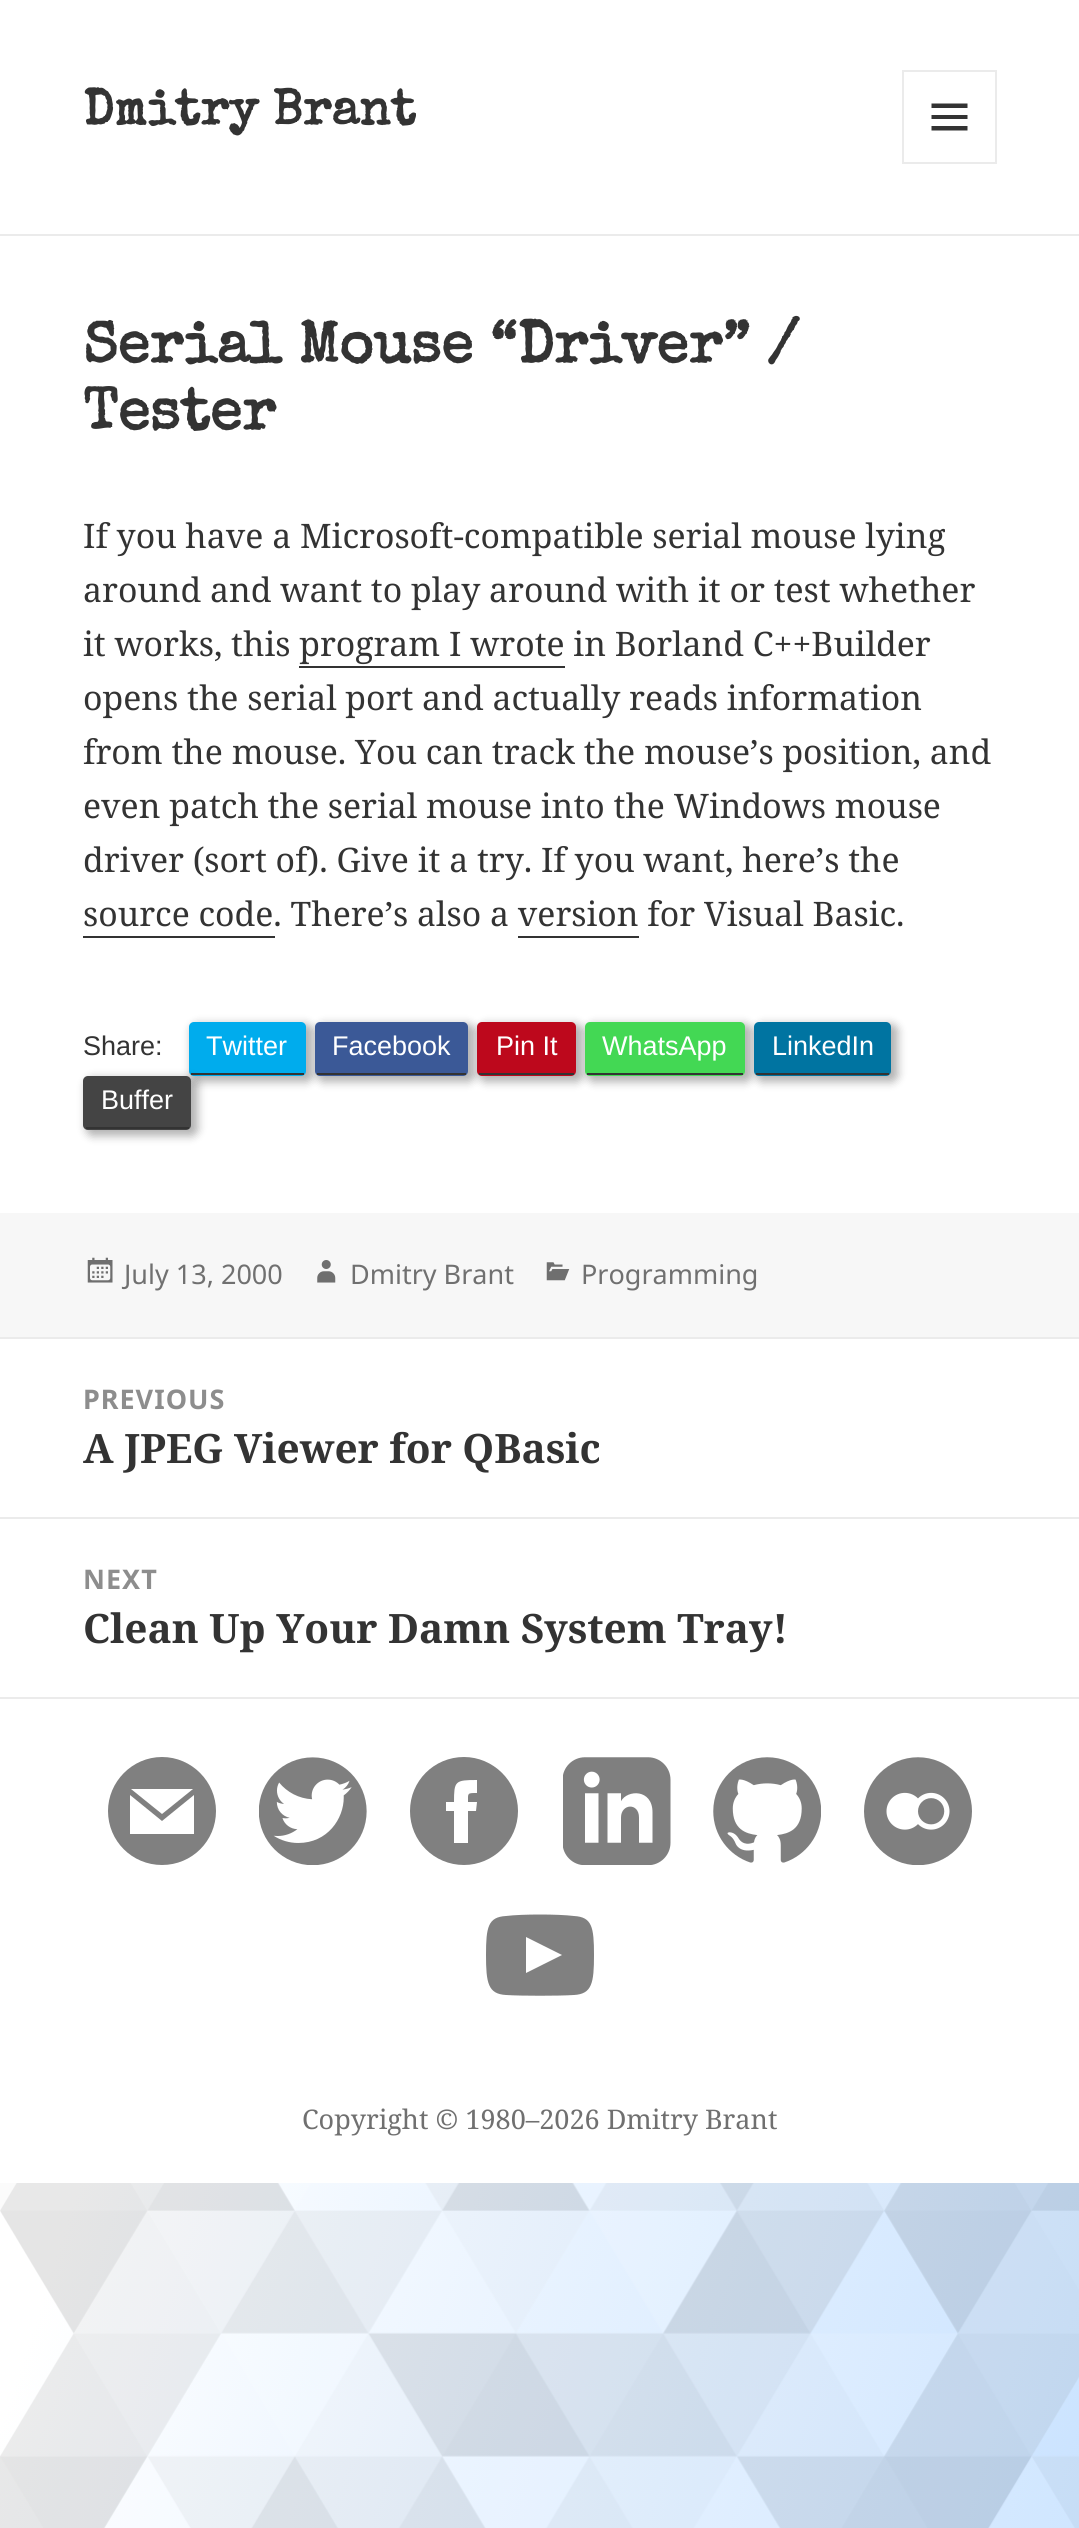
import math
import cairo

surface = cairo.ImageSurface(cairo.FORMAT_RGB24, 1079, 2528)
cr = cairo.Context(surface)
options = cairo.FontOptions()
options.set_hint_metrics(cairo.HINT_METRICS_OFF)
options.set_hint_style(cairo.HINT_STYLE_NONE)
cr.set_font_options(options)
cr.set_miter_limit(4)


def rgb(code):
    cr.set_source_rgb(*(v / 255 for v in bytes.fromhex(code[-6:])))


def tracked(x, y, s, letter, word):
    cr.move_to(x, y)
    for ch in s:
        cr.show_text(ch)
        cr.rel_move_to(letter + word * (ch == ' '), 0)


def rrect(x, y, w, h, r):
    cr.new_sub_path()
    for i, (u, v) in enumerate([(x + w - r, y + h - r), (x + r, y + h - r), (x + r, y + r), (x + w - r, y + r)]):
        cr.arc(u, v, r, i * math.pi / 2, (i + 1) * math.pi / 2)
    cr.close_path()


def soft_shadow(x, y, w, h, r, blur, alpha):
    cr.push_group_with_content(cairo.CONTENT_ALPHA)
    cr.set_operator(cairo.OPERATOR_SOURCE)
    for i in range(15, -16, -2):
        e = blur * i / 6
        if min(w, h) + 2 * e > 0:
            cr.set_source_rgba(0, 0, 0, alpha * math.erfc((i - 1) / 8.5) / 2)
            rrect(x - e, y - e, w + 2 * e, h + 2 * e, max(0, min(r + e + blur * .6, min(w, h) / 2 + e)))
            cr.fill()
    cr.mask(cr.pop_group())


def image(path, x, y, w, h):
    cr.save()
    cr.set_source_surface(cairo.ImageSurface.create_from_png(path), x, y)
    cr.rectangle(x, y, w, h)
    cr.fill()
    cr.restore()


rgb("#ffffff")
cr.paint()
image("img/1.png", 0, 2183, 1079, 345)
rgb("#ebebeb")
cr.rectangle(0, 234, 1079, 2)
cr.fill()
cr.rectangle(903, 71, 93, 92)
cr.stroke()
rgb("#333333")
cr.new_path()
cr.move_to(931.5, 130.5)
cr.line_to(931.5, 126)
cr.line_to(967.5, 126)
cr.line_to(967.5, 130.5)
cr.close_path()
cr.move_to(931.5, 103.5)
cr.line_to(967.5, 103.5)
cr.line_to(967.5, 108)
cr.line_to(931.5, 108)
cr.close_path()
cr.move_to(931.5, 119)
cr.line_to(931.5, 115)
cr.line_to(967.5, 115)
cr.line_to(967.5, 119)
cr.close_path()
cr.fill()
for x, y, w, h, color in [
    (299, 666, 266, 2, "#333333"),
    (83, 936, 192, 2, "#333333"),
    (518, 936, 121, 2, "#333333"),
]:
    rgb(color)
    cr.rectangle(x, y, w, h)
    cr.fill()
rgb("#000000")
soft_shadow(191, 1024, 122, 58, 7, 4.5, 0.3)
rgb("#00aced")
rrect(189, 1022, 117, 54, 5)
cr.fill()
rgb("#333333")
cr.rectangle(191, 1073, 113, 2)
cr.fill()
rgb("#000000")
soft_shadow(317, 1024, 158, 58, 7, 4.5, 0.3)
rgb("#3b5997")
rrect(315, 1022, 153, 54, 5)
cr.fill()
rgb("#333333")
cr.rectangle(317, 1073, 149, 2)
cr.fill()
rgb("#000000")
soft_shadow(479, 1024, 104, 58, 7, 4.5, 0.3)
rgb("#bd081c")
rrect(477, 1022, 99, 54, 5)
cr.fill()
rgb("#333333")
cr.rectangle(479, 1073, 95, 2)
cr.fill()
rgb("#000000")
soft_shadow(587, 1024, 165, 58, 7, 4.5, 0.3)
rgb("#43d854")
rrect(585, 1022, 160, 54, 5)
cr.fill()
rgb("#333333")
cr.rectangle(587, 1073, 156, 2)
cr.fill()
rgb("#000000")
soft_shadow(756, 1024, 142, 58, 7, 4.5, 0.3)
rgb("#0074a1")
rrect(754, 1022, 137, 54, 5)
cr.fill()
rgb("#333333")
cr.rectangle(756, 1073, 133, 2)
cr.fill()
rgb("#000000")
soft_shadow(86, 1078, 112, 58, 7, 4.5, 0.3)
rgb("#444444")
rrect(83, 1076, 108, 54, 5)
cr.fill()
rgb("#333333")
cr.rectangle(86, 1127, 103, 2)
cr.fill()
rgb("#f7f7f7")
cr.rectangle(0, 1213, 1079, 124)
cr.fill()
image("img/2.png", 87, 1257, 26, 26)
image("img/3.png", 317, 1260, 19, 23)
image("img/4.png", 546, 1262, 24, 19)
for x, y, w, h, color in [
    (0, 1337, 1079, 2, "#ebebeb"),
    (0, 1517, 1079, 2, "#ebebeb"),
    (0, 1697, 1079, 2, "#ebebeb"),
]:
    rgb(color)
    cr.rectangle(x, y, w, h)
    cr.fill()
rgb("#808080")
cr.new_path()
cr.move_to(162, 1757)
cr.curve_to(132, 1757, 108, 1782, 108, 1811)
cr.curve_to(108, 1841, 132, 1865, 162, 1865)
cr.curve_to(192, 1865, 216, 1841, 216, 1811)
cr.curve_to(216, 1782, 192, 1757, 162, 1757)
cr.close_path()
cr.move_to(193, 1789)
cr.line_to(162, 1814)
cr.line_to(131, 1789)
cr.close_path()
cr.move_to(194, 1834)
cr.line_to(130, 1834)
cr.line_to(130, 1795)
cr.line_to(162, 1821)
cr.line_to(194, 1795)
cr.close_path()
cr.fill()
image("img/5.png", 259, 1757, 108, 108)
cr.new_path()
cr.move_to(464, 1757)
cr.curve_to(434, 1757, 410, 1781, 410, 1811)
cr.curve_to(410, 1841, 434, 1865, 464, 1865)
cr.curve_to(493, 1865, 518, 1841, 518, 1811)
cr.curve_to(518, 1781, 493, 1757, 464, 1757)
cr.close_path()
cr.move_to(477, 1793)
cr.curve_to(467, 1793, 468, 1793, 468, 1802)
cr.line_to(477, 1802)
cr.line_to(476, 1811)
cr.line_to(468, 1811)
cr.line_to(468, 1843)
cr.line_to(454, 1843)
cr.line_to(454, 1811)
cr.line_to(446, 1811)
cr.line_to(446, 1802)
cr.line_to(454, 1802)
cr.curve_to(454, 1781, 455, 1780, 477, 1780)
cr.close_path()
cr.fill()
image("img/6.png", 563, 1757, 108, 108)
image("img/7.png", 713, 1757, 108, 106)
image("img/8.png", 864, 1757, 108, 108)
cr.new_path()
cr.move_to(574, 1916)
cr.curve_to(558, 1914, 522, 1914, 506, 1916)
cr.curve_to(488, 1917, 486, 1927, 486, 1955)
cr.curve_to(486, 1983, 488, 1994, 506, 1995)
cr.curve_to(522, 1996, 558, 1996, 574, 1995)
cr.curve_to(592, 1994, 594, 1983, 594, 1955)
cr.curve_to(594, 1927, 592, 1917, 574, 1916)
cr.close_path()
cr.move_to(526, 1973)
cr.line_to(526, 1937)
cr.line_to(562, 1955)
cr.close_path()
cr.fill()
cr.select_font_face("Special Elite", cairo.FONT_SLANT_NORMAL, cairo.FONT_WEIGHT_BOLD)
cr.set_font_size(49.5)
rgb("#333333")
cr.move_to(83, 124)
cr.show_text("Dmitry Brant")
cr.set_font_size(58.5)
cr.move_to(83, 362)
cr.show_text("Serial Mouse “Driver” /")
cr.move_to(83, 429)
cr.show_text("Tester")
cr.select_font_face("Noto Serif")
cr.set_font_size(33.75)
for x, y, s in [
    (83, 548, "If you have a Microsoft-compatible serial mouse lying"),
    (83, 602, "around and want to play around with it or test whether"),
    (83, 656, "it works, this program I wrote in Borland C++Builder"),
    (83, 710, "opens the serial port and actually reads information"),
    (83, 764, "from the mouse. You can track the mouse’s position, and"),
    (83, 818, "even patch the serial mouse into the Windows mouse"),
    (83, 872, "driver (sort of). Give it a try. If you want, here’s the"),
    (83, 926, "source code. There’s also a version for Visual Basic."),
]:
    cr.move_to(x, y)
    cr.show_text(s)
cr.select_font_face("Liberation Sans")
cr.set_font_size(27)
cr.move_to(83, 1055)
cr.show_text("Share:")
rgb("#ffffff")
for x, y, s in [
    (206, 1055, "Twitter"),
    (332, 1055, "Facebook"),
    (496, 1055, "Pin It"),
    (602, 1055, "WhatsApp"),
    (772, 1055, "LinkedIn"),
    (101, 1109, "Buffer"),
]:
    cr.move_to(x, y)
    cr.show_text(s)
cr.select_font_face("Noto Sans")
rgb("#707070")
for x, y, s in [
    (124, 1284, "July 13, 2000"),
    (350, 1284, "Dmitry Brant"),
    (581, 1284, "Programming"),
]:
    cr.move_to(x, y)
    cr.show_text(s)
cr.select_font_face("Noto Sans", cairo.FONT_SLANT_NORMAL, cairo.FONT_WEIGHT_BOLD)
rgb("#8d8d8d")
tracked(83, 1409, "PREVIOUS", 1, 0)
cr.select_font_face("Noto Serif", cairo.FONT_SLANT_NORMAL, cairo.FONT_WEIGHT_BOLD)
cr.set_font_size(40.5)
rgb("#333333")
cr.move_to(83, 1463)
cr.show_text("A JPEG Viewer for QBasic")
cr.select_font_face("Noto Sans", cairo.FONT_SLANT_NORMAL, cairo.FONT_WEIGHT_BOLD)
cr.set_font_size(27)
rgb("#8d8d8d")
tracked(83, 1589, "NEXT", 1, 0)
cr.select_font_face("Noto Serif", cairo.FONT_SLANT_NORMAL, cairo.FONT_WEIGHT_BOLD)
cr.set_font_size(40.5)
rgb("#333333")
cr.move_to(83, 1643)
cr.show_text("Clean Up Your Damn System Tray!")
cr.select_font_face("Noto Serif")
cr.set_font_size(27)
rgb("#707070")
cr.move_to(302, 2129)
cr.show_text("Copyright © 1980–2026 Dmitry Brant")
surface.write_to_png("page.png")
